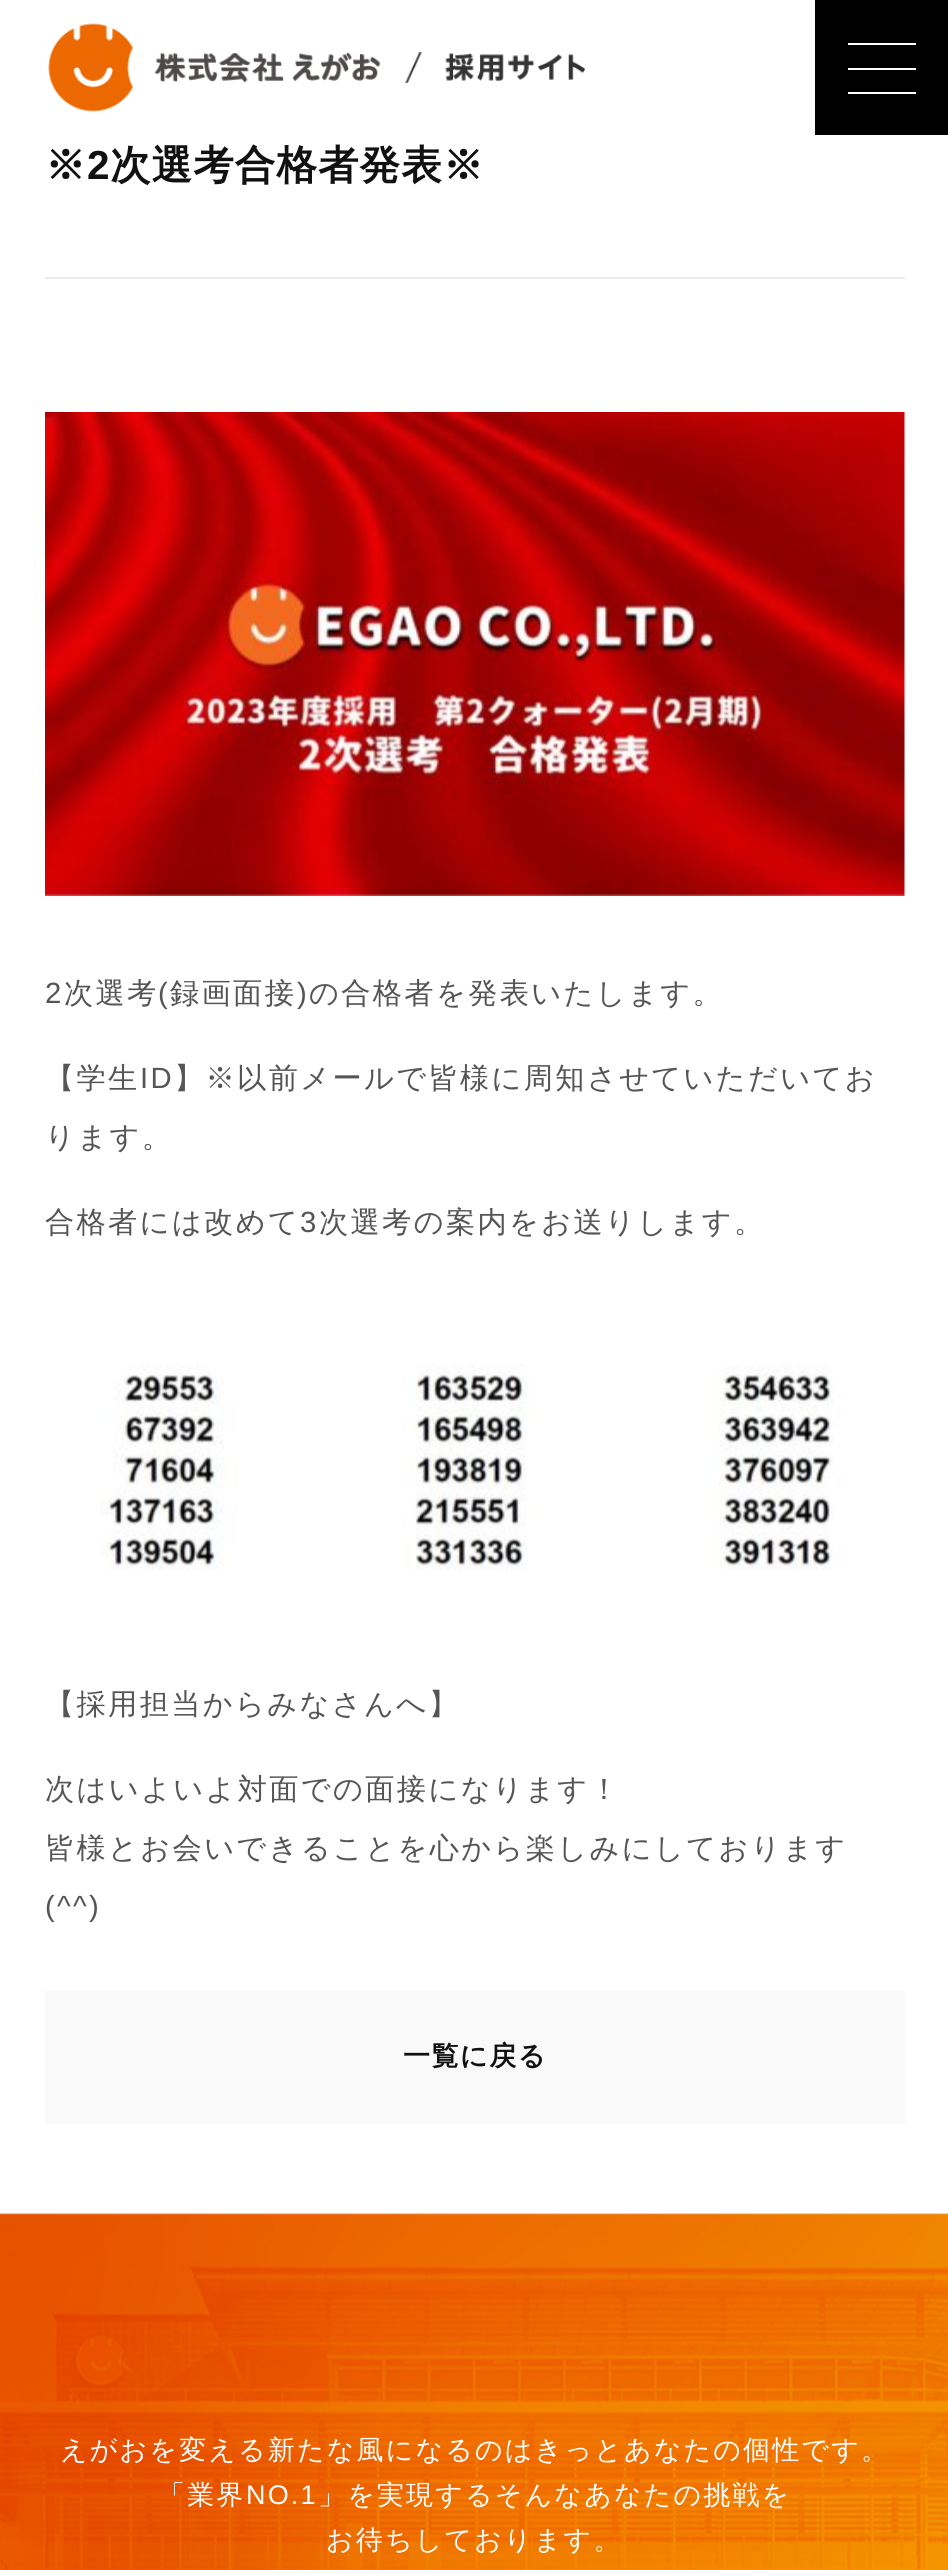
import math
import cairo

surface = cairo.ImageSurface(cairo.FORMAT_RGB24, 948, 2570)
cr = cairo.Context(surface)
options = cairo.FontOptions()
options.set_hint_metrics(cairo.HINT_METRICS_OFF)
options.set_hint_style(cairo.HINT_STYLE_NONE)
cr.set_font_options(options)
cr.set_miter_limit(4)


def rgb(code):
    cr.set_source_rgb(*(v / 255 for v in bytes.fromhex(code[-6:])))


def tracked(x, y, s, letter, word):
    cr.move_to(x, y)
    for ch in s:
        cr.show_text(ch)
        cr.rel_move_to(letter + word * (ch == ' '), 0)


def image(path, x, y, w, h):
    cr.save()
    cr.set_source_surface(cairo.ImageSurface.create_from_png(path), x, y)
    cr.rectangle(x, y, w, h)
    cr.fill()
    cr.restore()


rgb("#ffffff")
cr.paint()
image("img/1.png", 48, 23, 537, 89)
for x, y, w, h, color in [
    (815, 0, 133, 135, "#000000"),
    (848, 43, 68, 2, "#ffffff"),
    (848, 68, 68, 2, "#ffffff"),
    (848, 92, 68, 2, "#ffffff"),
    (45, 277, 860, 2, "#eaeaea"),
]:
    rgb(color)
    cr.rectangle(x, y, w, h)
    cr.fill()
image("img/2.png", 45, 412, 860, 484)
image("img/3.png", 100, 1364, 742, 207)
rgb("#f9f9f9")
cr.rectangle(45, 1991, 860, 133)
cr.fill()
image("img/4.png", 0, 2213, 948, 357)
cr.select_font_face("WenQuanYi Zen Hei", cairo.FONT_SLANT_NORMAL, cairo.FONT_WEIGHT_BOLD)
cr.set_font_size(40.5)
rgb("#111111")
tracked(45, 179, "※", 1.1, 0)
cr.select_font_face("Liberation Sans", cairo.FONT_SLANT_NORMAL, cairo.FONT_WEIGHT_BOLD)
tracked(87, 179, "2", 1.1, 0)
cr.select_font_face("WenQuanYi Zen Hei", cairo.FONT_SLANT_NORMAL, cairo.FONT_WEIGHT_BOLD)
tracked(110, 179, "次選考合格者発表※", 1.1, 0)
cr.select_font_face("Liberation Sans")
cr.set_font_size(29.25)
rgb("#555555")
tracked(45, 1003, "2", 2.3, 0)
cr.select_font_face("WenQuanYi Zen Hei Medium")
tracked(64, 1003, "次選考", 2.3, 0)
cr.select_font_face("Liberation Sans")
tracked(158, 1003, "(", 2.3, 0)
cr.select_font_face("WenQuanYi Zen Hei Medium")
tracked(170, 1003, "録画面接", 2.3, 0)
cr.select_font_face("Liberation Sans")
tracked(297, 1003, ")", 2.3, 0)
cr.select_font_face("WenQuanYi Zen Hei Medium")
tracked(309, 1003, "の合格者を発表いたします。", 2.3, 0)
tracked(45, 1088, "【学生", 2.3, 0)
cr.select_font_face("Liberation Sans")
tracked(140, 1088, "ID", 2.3, 0)
cr.select_font_face("WenQuanYi Zen Hei Medium")
for x, y, s in [
    (174, 1088, "】※以前メールで皆様に周知させていただいてお"),
    (45, 1147, "ります。"),
    (45, 1232, "合格者には改めて"),
]:
    tracked(x, y, s, 2.3, 0)
cr.select_font_face("Liberation Sans")
tracked(300, 1232, "3", 2.3, 0)
cr.select_font_face("WenQuanYi Zen Hei Medium")
for x, y, s in [
    (319, 1232, "次選考の案内をお送りします。"),
    (45, 1714, "【採用担当からみなさんへ】"),
    (45, 1799, "次はいよいよ対面での面接になります！"),
    (45, 1858, "皆様とお会いできることを心から楽しみにしております"),
]:
    tracked(x, y, s, 2.3, 0)
cr.select_font_face("Liberation Sans")
tracked(45, 1916, "(^^)", 2.3, 0)
cr.select_font_face("WenQuanYi Zen Hei", cairo.FONT_SLANT_NORMAL, cairo.FONT_WEIGHT_BOLD)
cr.set_font_size(27)
rgb("#111111")
tracked(403, 2065, "一覧に戻る", 1.5, 0)
cr.select_font_face("WenQuanYi Zen Hei Medium")
rgb("#ffffff")
tracked(60, 2459, "えがおを変える新たな風になるのはきっとあなたの個性です。", 2.15, 0)
tracked(158, 2504, "「業界", 2.15, 0)
cr.select_font_face("Liberation Sans")
tracked(246, 2504, "NO.1", 2.15, 0)
cr.select_font_face("WenQuanYi Zen Hei Medium")
tracked(318, 2504, "」を実現するそんなあなたの挑戦を", 2.15, 0)
tracked(326, 2549, "お待ちしております。", 2.15, 0)
surface.write_to_png("page.png")
